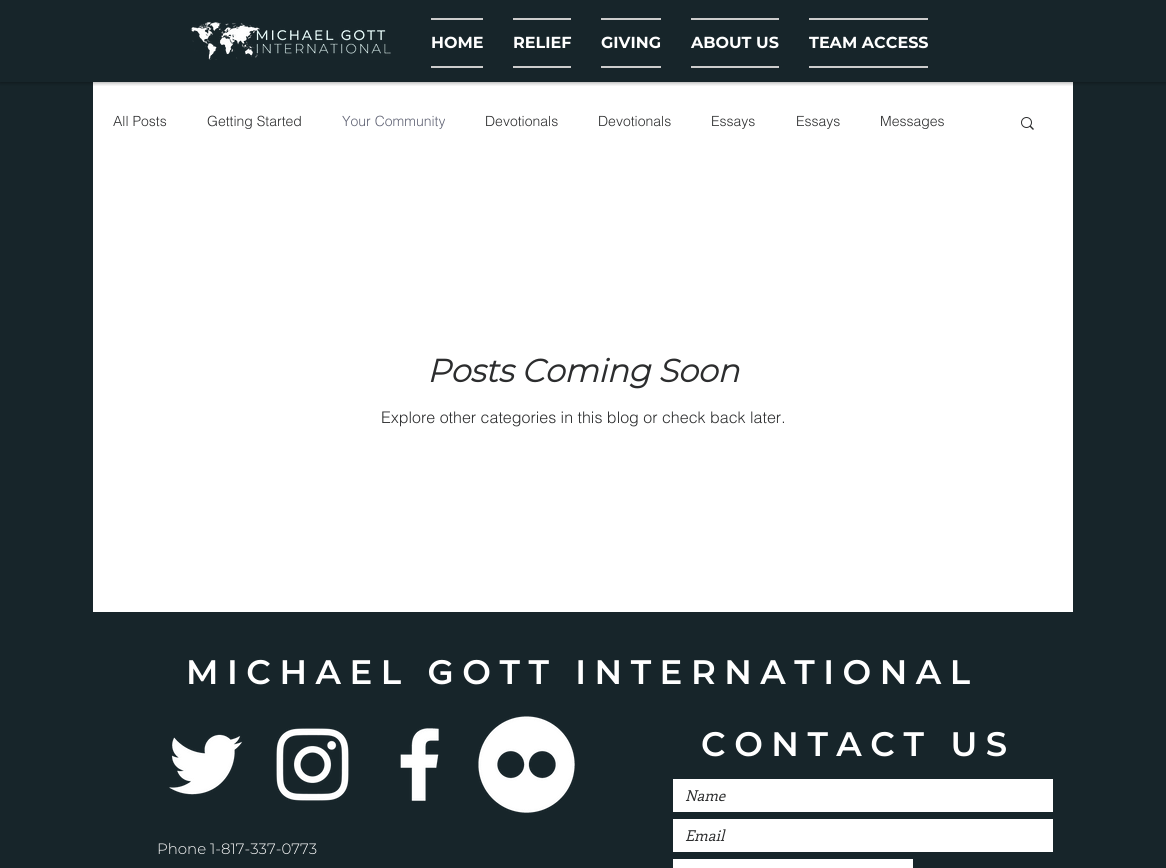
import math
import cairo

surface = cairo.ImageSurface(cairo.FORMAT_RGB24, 1166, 868)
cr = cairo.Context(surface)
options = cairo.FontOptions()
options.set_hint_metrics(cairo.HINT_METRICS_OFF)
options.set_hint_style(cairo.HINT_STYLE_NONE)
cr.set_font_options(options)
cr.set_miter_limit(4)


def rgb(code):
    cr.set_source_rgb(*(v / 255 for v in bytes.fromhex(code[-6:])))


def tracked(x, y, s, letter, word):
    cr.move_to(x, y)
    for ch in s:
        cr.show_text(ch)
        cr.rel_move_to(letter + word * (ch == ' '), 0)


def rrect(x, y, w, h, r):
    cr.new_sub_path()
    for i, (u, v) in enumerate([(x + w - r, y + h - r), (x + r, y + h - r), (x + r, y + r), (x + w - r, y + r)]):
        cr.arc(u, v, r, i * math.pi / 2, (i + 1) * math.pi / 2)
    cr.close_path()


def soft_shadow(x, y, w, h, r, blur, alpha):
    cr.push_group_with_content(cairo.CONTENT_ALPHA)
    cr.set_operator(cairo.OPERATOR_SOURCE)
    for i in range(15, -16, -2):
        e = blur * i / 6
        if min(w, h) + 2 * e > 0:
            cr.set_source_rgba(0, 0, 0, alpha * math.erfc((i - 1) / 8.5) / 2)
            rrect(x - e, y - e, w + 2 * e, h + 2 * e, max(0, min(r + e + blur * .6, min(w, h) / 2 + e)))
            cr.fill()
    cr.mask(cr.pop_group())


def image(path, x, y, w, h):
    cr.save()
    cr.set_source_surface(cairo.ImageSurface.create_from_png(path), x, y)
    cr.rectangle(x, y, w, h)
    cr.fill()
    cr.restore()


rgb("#17252a")
cr.paint()
rgb("#ffffff")
cr.rectangle(93, 82, 980, 530)
cr.fill()
cr.save()
cr.rectangle(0, 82, 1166, 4)
cr.clip()
rgb("#000000")
soft_shadow(0, 0, 1166, 82, 0, 2.5, 0.5)
cr.restore()
image("img/1.png", 190, 22, 201, 38)
for x, y, w, h, color in [
    (431, 18, 52, 2, "#cccccc"),
    (431, 66, 52, 2, "#cccccc"),
    (513, 18, 58, 2, "#cccccc"),
    (513, 66, 58, 2, "#cccccc"),
    (601, 18, 60, 2, "#cccccc"),
    (601, 66, 60, 2, "#cccccc"),
    (691, 18, 88, 2, "#cccccc"),
    (691, 66, 88, 2, "#cccccc"),
    (809, 18, 119, 2, "#cccccc"),
    (809, 66, 119, 2, "#cccccc"),
]:
    rgb(color)
    cr.rectangle(x, y, w, h)
    cr.fill()
image("img/2.png", 1021, 117, 13, 13)
image("img/3.png", 169, 734, 74, 61)
image("img/4.png", 276, 728, 73, 73)
image("img/5.png", 400, 728, 39, 73)
image("img/6.png", 478, 716, 97, 97)
for x, y, w, h, color in [
    (673, 779, 380, 33, "#ffffff"),
    (673, 819, 380, 33, "#ffffff"),
    (673, 859, 240, 9, "#ffffff"),
]:
    rgb(color)
    cr.rectangle(x, y, w, h)
    cr.fill()
cr.select_font_face("Montserrat", cairo.FONT_SLANT_NORMAL, cairo.FONT_WEIGHT_BOLD)
cr.set_font_size(16)
for x, y, s in [
    (431, 48, "HOME"),
    (513, 48, "RELIEF"),
    (601, 48, "GIVING"),
    (691, 48, "ABOUT US"),
    (809, 48, "TEAM ACCESS"),
]:
    cr.move_to(x, y)
    cr.show_text(s)
cr.select_font_face("helvetica Light")
cr.set_font_size(14)
rgb("#2c2d2e")
cr.move_to(113, 126)
cr.show_text("All Posts")
cr.move_to(207, 126)
cr.show_text("Getting Started")
rgb("#616475")
cr.move_to(342, 126)
cr.show_text("Your Community")
rgb("#2c2d2e")
for x, y, s in [
    (485, 126, "Devotionals"),
    (598, 126, "Devotionals"),
    (711, 126, "Essays"),
    (796, 126, "Essays"),
    (880, 126, "Messages"),
]:
    cr.move_to(x, y)
    cr.show_text(s)
cr.select_font_face("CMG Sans", cairo.FONT_SLANT_ITALIC, cairo.FONT_WEIGHT_BOLD)
cr.set_font_size(32)
cr.move_to(427, 382)
cr.show_text("Posts Coming Soon")
cr.select_font_face("helvetica Light")
cr.set_font_size(16)
cr.move_to(381, 423)
cr.show_text("Explore other categories in this blog or check back later.")
cr.select_font_face("CMG Sans SemiBold")
cr.set_font_size(34)
rgb("#ffffff")
tracked(186, 684, "MICHAEL GOTT INTERNATIONAL", 8.5, 0)
tracked(701, 756, "CONTACT US", 8.5, 0)
cr.select_font_face("Enriqueta", cairo.FONT_SLANT_ITALIC)
cr.set_font_size(15)
rgb("#2c2d2e")
cr.move_to(685, 801)
cr.show_text("Name")
cr.move_to(685, 841)
cr.show_text("Email")
cr.select_font_face("Montserrat Light")
rgb("#ffffff")
cr.move_to(157, 854)
cr.show_text("Phone 1-817-337-0773")
surface.write_to_png("page.png")
